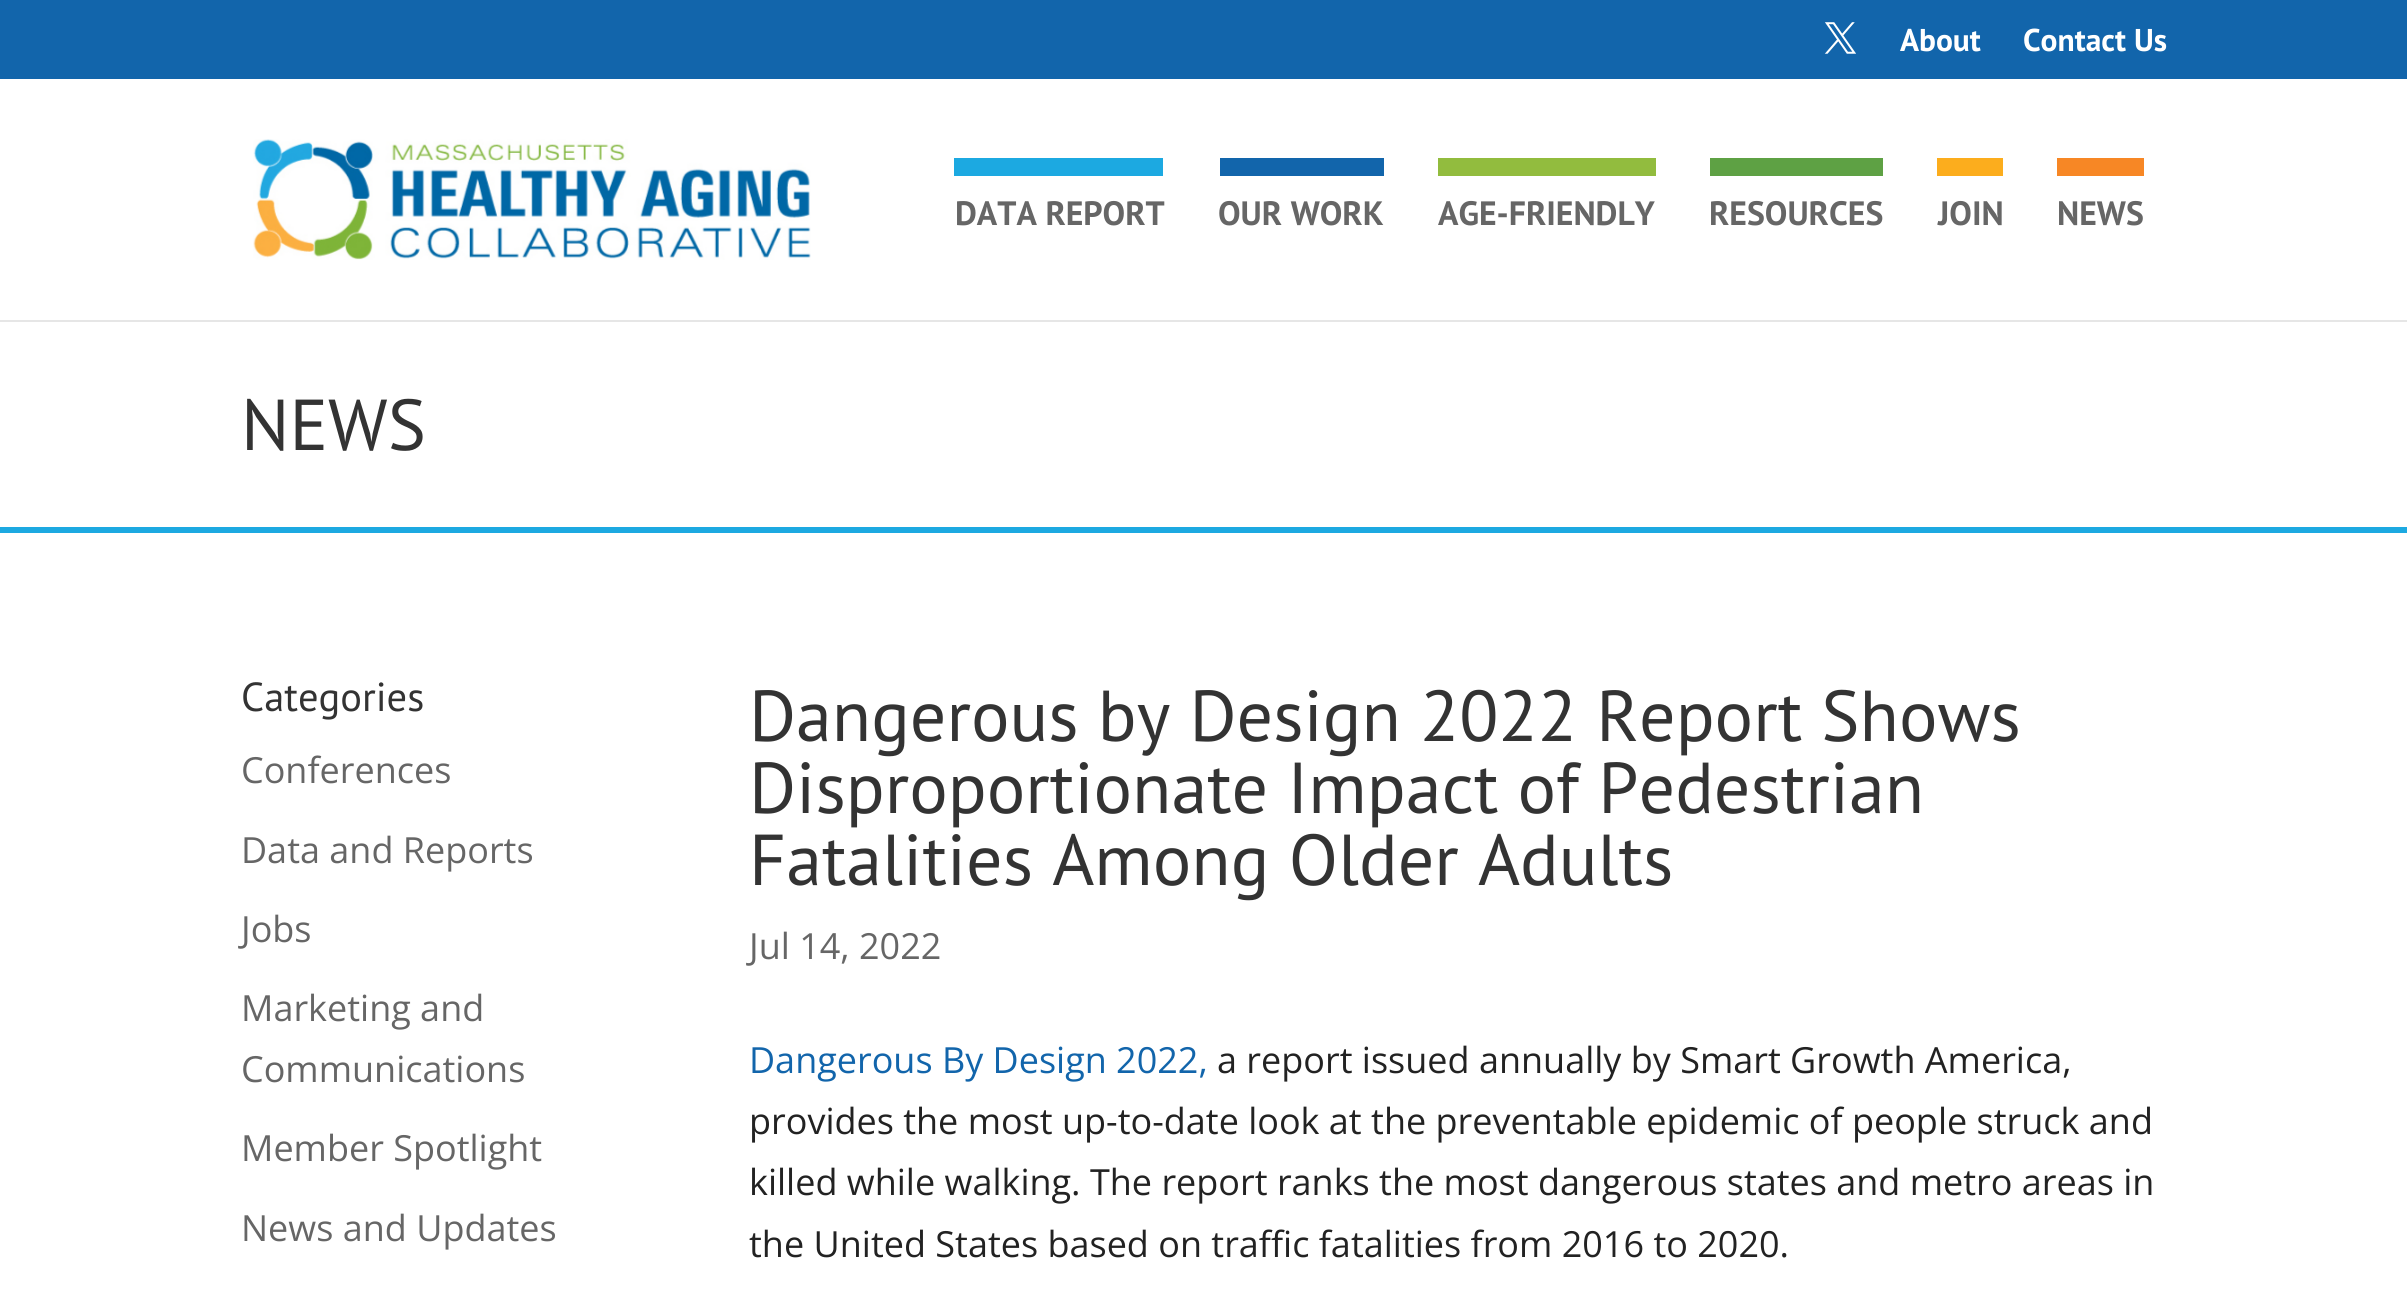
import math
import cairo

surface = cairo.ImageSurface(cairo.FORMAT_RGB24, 2407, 1304)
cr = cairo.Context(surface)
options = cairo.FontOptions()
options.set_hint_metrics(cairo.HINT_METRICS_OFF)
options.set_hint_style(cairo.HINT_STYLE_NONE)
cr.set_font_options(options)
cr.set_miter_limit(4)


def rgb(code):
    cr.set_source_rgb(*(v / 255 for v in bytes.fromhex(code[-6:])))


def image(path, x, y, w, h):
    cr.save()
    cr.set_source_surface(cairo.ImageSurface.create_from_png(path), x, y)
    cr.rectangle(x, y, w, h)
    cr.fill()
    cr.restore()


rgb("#ffffff")
cr.paint()
rgb("#1265ab")
cr.rectangle(0, 0, 2407, 79)
cr.fill()
image("img/1.png", 1824, 22, 32, 32)
rgb("#e6e6e6")
cr.new_path()
cr.move_to(0, 320)
cr.line_to(0, 322)
cr.line_to(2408, 322)
cr.line_to(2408, 81)
cr.line_to(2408, 320)
cr.close_path()
cr.fill()
image("img/2.png", 253, 139, 558, 121)
for x, y, w, h, color in [
    (954, 158, 209, 18, "#1ca9e1"),
    (1220, 158, 164, 18, "#1265ab"),
    (1438, 158, 218, 18, "#92bc3e"),
    (1710, 158, 173, 18, "#5ea144"),
    (1937, 158, 66, 18, "#fcad1d"),
    (2057, 158, 87, 18, "#f78725"),
    (0, 527, 2407, 6, "#1ca9e1"),
]:
    rgb(color)
    cr.rectangle(x, y, w, h)
    cr.fill()
cr.select_font_face("PT Sans", cairo.FONT_SLANT_NORMAL, cairo.FONT_WEIGHT_BOLD)
cr.set_font_size(31.5)
rgb("#ffffff")
cr.move_to(1900, 51)
cr.show_text("About")
cr.move_to(2023, 51)
cr.show_text("Contact Us")
cr.set_font_size(33.75)
rgb("#666666")
for x, y, s in [
    (955, 225, "DATA REPORT"),
    (1218, 225, "OUR WORK"),
    (1438, 225, "AGE-FRIENDLY"),
    (1709, 225, "RESOURCES"),
    (1938, 225, "JOIN"),
    (2057, 225, "NEWS"),
]:
    cr.move_to(x, y)
    cr.show_text(s)
cr.select_font_face("PT Sans")
cr.set_font_size(72)
rgb("#333333")
cr.move_to(241, 450)
cr.show_text("NEWS")
cr.set_font_size(40.5)
cr.move_to(241, 711)
cr.show_text("Categories")
cr.select_font_face("Open Sans")
cr.set_font_size(36)
rgb("#666666")
for x, y, s in [
    (241, 783, "Conferences"),
    (241, 863, "Data and Reports"),
    (241, 942, "Jobs"),
    (241, 1021, "Marketing and"),
    (241, 1082, "Communications"),
    (241, 1161, "Member Spotlight"),
    (241, 1241, "News and Updates"),
]:
    cr.move_to(x, y)
    cr.show_text(s)
cr.select_font_face("PT Sans")
cr.set_font_size(72)
rgb("#333333")
for x, y, s in [
    (749, 741, "Dangerous by Design 2022 Report Shows"),
    (749, 813, "Disproportionate Impact of Pedestrian"),
    (749, 885, "Fatalities Among Older Adults"),
]:
    cr.move_to(x, y)
    cr.show_text(s)
cr.select_font_face("Open Sans")
cr.set_font_size(36)
rgb("#666666")
cr.move_to(749, 959)
cr.show_text("Jul 14, 2022")
rgb("#1265ab")
cr.move_to(749, 1073)
cr.show_text("Dangerous By Design 2022,")
rgb("#222222")
for x, y, s in [
    (1217, 1073, "a report issued annually by Smart Growth America,"),
    (749, 1134, "provides the most up-to-date look at the preventable epidemic of people struck and"),
    (749, 1195, "killed while walking. The report ranks the most dangerous states and metro areas in"),
    (749, 1257, "the United States based on traffic fatalities from 2016 to 2020."),
]:
    cr.move_to(x, y)
    cr.show_text(s)
surface.write_to_png("page.png")
